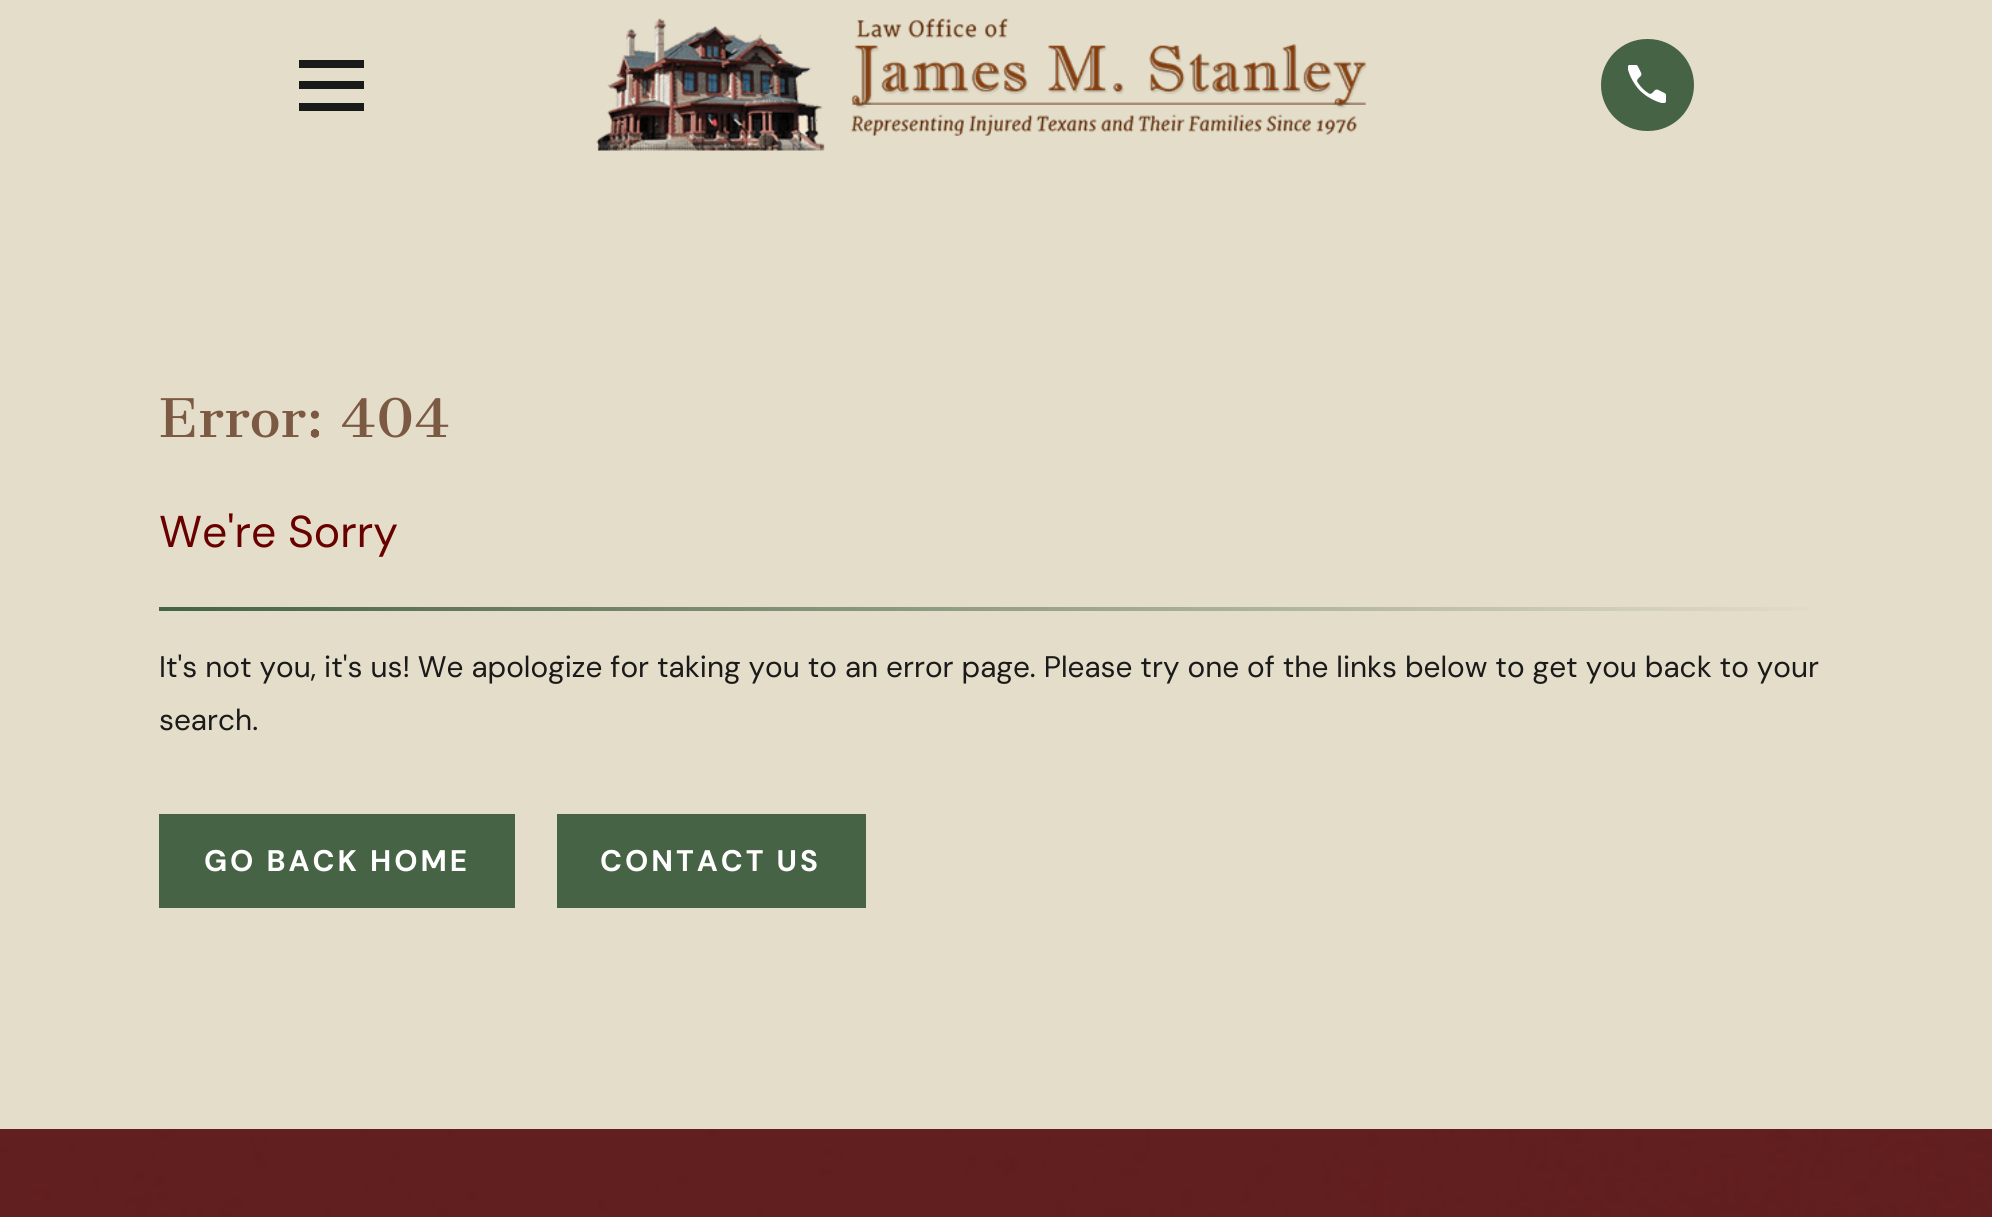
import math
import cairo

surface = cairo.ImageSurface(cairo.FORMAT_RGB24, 1992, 1217)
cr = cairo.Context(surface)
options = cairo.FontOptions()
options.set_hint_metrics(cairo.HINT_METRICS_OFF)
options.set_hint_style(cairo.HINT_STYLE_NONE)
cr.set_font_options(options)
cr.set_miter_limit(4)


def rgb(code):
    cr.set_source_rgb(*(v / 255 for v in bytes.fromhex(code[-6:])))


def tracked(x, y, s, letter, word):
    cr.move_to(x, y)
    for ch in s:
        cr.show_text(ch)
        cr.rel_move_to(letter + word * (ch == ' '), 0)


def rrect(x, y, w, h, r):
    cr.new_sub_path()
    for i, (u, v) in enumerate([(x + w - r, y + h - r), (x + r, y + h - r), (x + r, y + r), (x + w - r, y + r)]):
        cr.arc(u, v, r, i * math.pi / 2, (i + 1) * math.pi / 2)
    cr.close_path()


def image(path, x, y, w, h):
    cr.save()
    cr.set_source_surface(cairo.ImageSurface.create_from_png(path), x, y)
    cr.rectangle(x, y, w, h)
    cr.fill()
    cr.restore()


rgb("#e4ddc9")
cr.paint()
cr.save()
cr.rectangle(299, 53, 65, 64)
cr.clip()
rgb("#1a1a1a")
cr.new_path()
cr.move_to(299, 60)
cr.line_to(299, 68)
cr.line_to(365, 68)
cr.line_to(365, 60)
cr.close_path()
cr.move_to(299, 81)
cr.line_to(299, 89)
cr.line_to(365, 89)
cr.line_to(365, 81)
cr.close_path()
cr.move_to(299, 103)
cr.line_to(299, 111)
cr.line_to(365, 111)
cr.line_to(365, 103)
cr.close_path()
cr.fill()
cr.restore()
image("img/1.png", 596, 18, 771, 133)
rgb("#466345")
rrect(1601, 39, 93, 92, 46)
cr.fill()
image("img/2.png", 1628, 65, 38, 38)
gradient = cairo.LinearGradient(159, 609, 1834, 609)
gradient.add_color_stop_rgba(0, 0.275, 0.388, 0.271, 1)
gradient.add_color_stop_rgba(1, 0.894, 0.867, 0.788, 1)
cr.set_source(gradient)
cr.rectangle(159, 607, 1649, 4)
cr.fill()
for x, y, w, h, color in [
    (159, 814, 356, 94, "#466345"),
    (557, 814, 309, 94, "#466345"),
    (0, 1129, 1992, 88, "#4c0000"),
]:
    rgb(color)
    cr.rectangle(x, y, w, h)
    cr.fill()
image("img/3.png", 0, 1129, 1992, 88)
cr.select_font_face("Cantata One")
cr.set_font_size(52)
rgb("#7c5942")
cr.move_to(159, 437)
cr.show_text("Error: 404")
cr.select_font_face("DM Sans")
cr.set_font_size(44.5)
rgb("#690000")
cr.move_to(159, 547)
cr.show_text("We're Sorry")
cr.set_font_size(29.75)
rgb("#1a1a1a")
cr.move_to(159, 677)
cr.show_text("It's not you, it's us! We apologize for taking you to an error page. Please try one of the links below to get you back to your")
cr.move_to(159, 730)
cr.show_text("search.")
cr.select_font_face("DM Sans", cairo.FONT_SLANT_NORMAL, cairo.FONT_WEIGHT_BOLD)
rgb("#ffffff")
tracked(204, 871, "GO BACK HOME", 3, 0)
tracked(600, 871, "CONTACT US", 3, 0)
surface.write_to_png("page.png")
